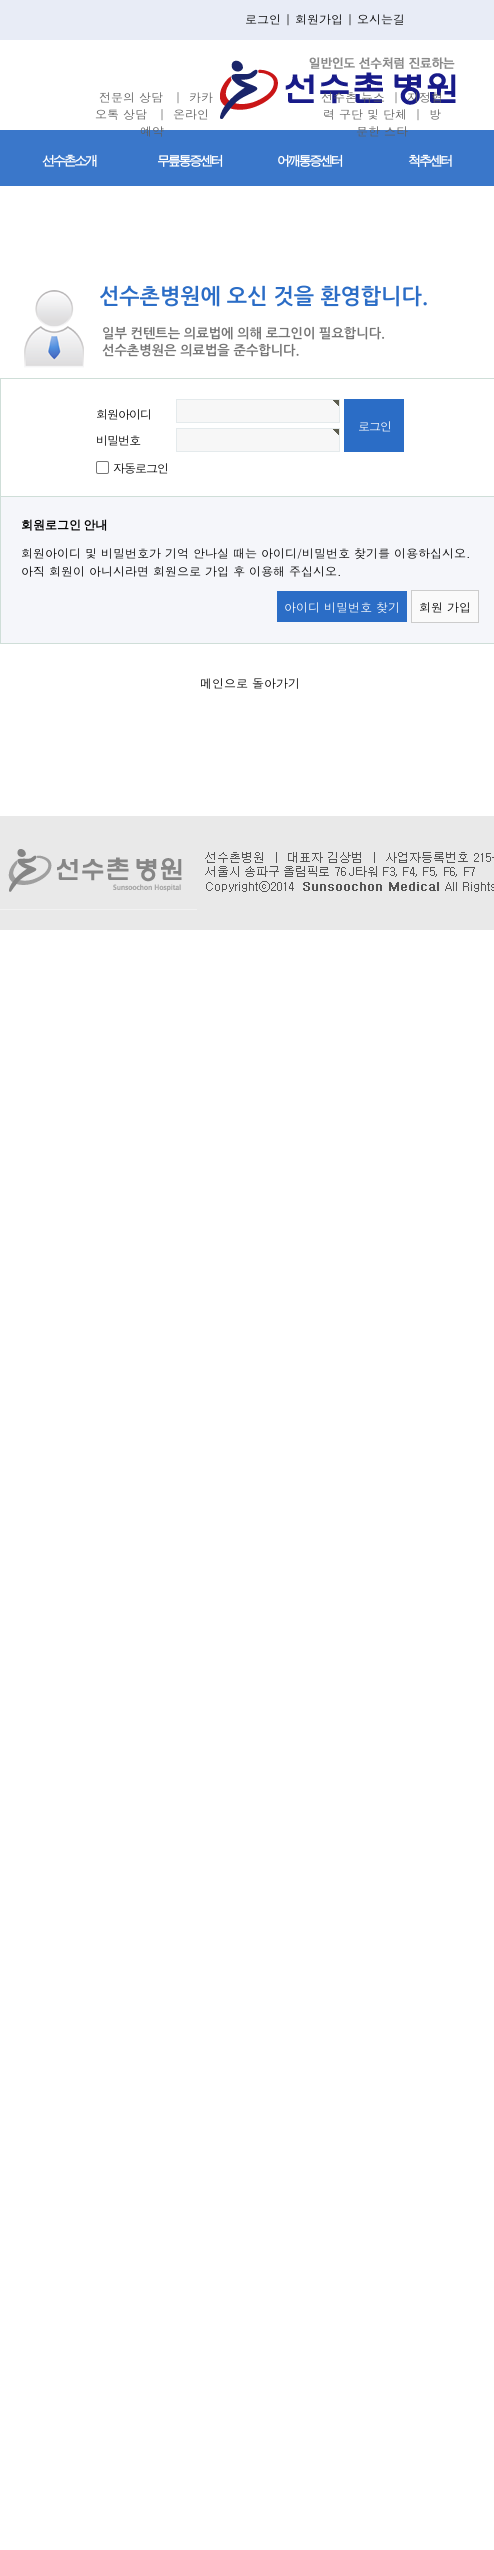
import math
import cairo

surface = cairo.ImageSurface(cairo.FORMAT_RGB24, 494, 2550)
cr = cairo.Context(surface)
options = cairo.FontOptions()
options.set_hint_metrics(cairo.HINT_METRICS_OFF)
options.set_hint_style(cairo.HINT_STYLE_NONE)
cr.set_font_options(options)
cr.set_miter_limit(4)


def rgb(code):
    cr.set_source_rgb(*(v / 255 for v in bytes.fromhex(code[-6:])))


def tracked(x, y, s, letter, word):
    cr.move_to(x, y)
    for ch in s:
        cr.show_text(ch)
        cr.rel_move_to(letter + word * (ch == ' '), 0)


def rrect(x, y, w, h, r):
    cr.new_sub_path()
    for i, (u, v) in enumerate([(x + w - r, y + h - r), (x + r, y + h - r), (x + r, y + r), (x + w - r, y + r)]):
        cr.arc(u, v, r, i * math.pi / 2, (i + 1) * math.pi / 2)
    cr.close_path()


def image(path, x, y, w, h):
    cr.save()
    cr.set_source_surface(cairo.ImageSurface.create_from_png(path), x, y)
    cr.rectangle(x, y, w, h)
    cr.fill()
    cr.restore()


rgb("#ffffff")
cr.paint()
rgb("#3a77ca")
cr.rectangle(0, 130, 494, 56)
cr.fill()
rgb("#e8ecf6")
cr.rectangle(0, 0, 494, 40)
cr.fill()
image("img/1.png", 220, 57, 236, 62)
image("img/2.png", 24, 290, 60, 78)
for x, y, w, h, color in [
    (0, 378, 494, 1, "#cfded8"),
    (0, 378, 1, 118, "#cfded8"),
    (177, 400, 162, 22, "#f7f7f7"),
]:
    rgb(color)
    cr.rectangle(x, y, w, h)
    cr.fill()
image("img/3.png", 333, 400, 6, 6)
cr.rectangle(176.5, 399.5, 163, 23)
rgb("#e4eaec")
cr.set_line_width(1)
cr.stroke()
rgb("#2b6dc6")
cr.rectangle(344, 399, 60, 53)
cr.fill()
rgb("#f7f7f7")
cr.rectangle(177, 429, 162, 22)
cr.fill()
image("img/3.png", 333, 429, 6, 6)
cr.rectangle(176.5, 428.5, 163, 23)
rgb("#e4eaec")
cr.stroke()
rrect(96.5, 461.5, 12, 12, 1.5)
rgb("#767676")
cr.stroke()
rgb("#f5f6fa")
cr.rectangle(0.5, 496.5, 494, 147)
cr.fill_preserve()
rgb("#cfded8")
cr.stroke()
rgb("#2b6dc6")
cr.rectangle(277, 591, 130, 31)
cr.fill()
rgb("#fafafa")
cr.rectangle(411.5, 590.5, 67, 32)
cr.fill_preserve()
rgb("#cccccc")
cr.stroke()
rgb("#e9e9e9")
cr.rectangle(0, 816, 494, 114)
cr.fill()
image("img/4.png", 0, 849, 494, 61)
cr.select_font_face("Dotum")
cr.set_font_size(12)
rgb("#000000")
cr.move_to(245, 24)
cr.show_text("로그인 | 회원가입 | 오시는길")
rgb("#5e5e5e")
for x, y, s in [
    (99, 102, "전문의 상담"),
    (175, 102, "|"),
    (189, 102, "카카"),
    (95, 119, "오톡 상담"),
    (159, 119, "|"),
    (173, 119, "온라인"),
    (140, 136, "예약"),
    (321, 102, "선수촌 뉴스"),
    (393, 102, "|"),
    (407, 102, "지정협"),
    (323, 119, "력 구단 및 단체"),
    (415, 119, "|"),
    (429, 119, "방"),
    (356, 136, "문한 스타"),
]:
    cr.move_to(x, y)
    cr.show_text(s)
cr.select_font_face("WenQuanYi Zen Hei", cairo.FONT_SLANT_NORMAL, cairo.FONT_WEIGHT_BOLD)
cr.set_font_size(13)
rgb("#ffffff")
for x, y, s in [
    (42, 165, "선수촌소개"),
    (157, 165, "무릎통증센터"),
    (277, 165, "어깨통증센터"),
    (408, 165, "척추센터"),
]:
    tracked(x, y, s, -2.25, 0)
cr.select_font_face("NanumGothic", cairo.FONT_SLANT_NORMAL, cairo.FONT_WEIGHT_BOLD)
cr.set_font_size(21.6)
rgb("#2b6dc6")
cr.move_to(99, 304)
cr.show_text("선수촌병원에 오신 것을 환영합니다.")
cr.set_font_size(13.2)
rgb("#757575")
cr.move_to(102, 338)
cr.show_text("일부 컨텐트는 의료법에 의해 로그인이 필요합니다.")
cr.move_to(102, 355)
cr.show_text("선수촌병원은 의료법을 준수합니다.")
cr.select_font_face("Dotum")
cr.set_font_size(12)
rgb("#000000")
tracked(96, 419, "회원아이디", -1, 0)
rgb("#ffffff")
tracked(358, 431, "로그인", -1, 0)
rgb("#000000")
tracked(96, 445, "비밀번호", -1, 0)
tracked(113, 473, "자동로그인", -1, 0)
cr.select_font_face("WenQuanYi Zen Hei", cairo.FONT_SLANT_NORMAL, cairo.FONT_WEIGHT_BOLD)
tracked(21, 529, "회원로그인 안내", 0, -1)
cr.select_font_face("Dotum")
cr.move_to(21, 558)
cr.show_text("회원아이디 및 비밀번호가 기억 안나실 때는 아이디/비밀번호 찾기를 이용하십시오.")
cr.move_to(21, 576)
cr.show_text("아직 회원이 아니시라면 회원으로 가입 후 이용해 주십시오.")
rgb("#ffffff")
cr.move_to(284, 612)
cr.show_text("아이디 비밀번호 찾기")
rgb("#000000")
cr.move_to(419, 612)
cr.show_text("회원 가입")
cr.move_to(200, 688)
cr.show_text("메인으로 돌아가기")
surface.write_to_png("page.png")
